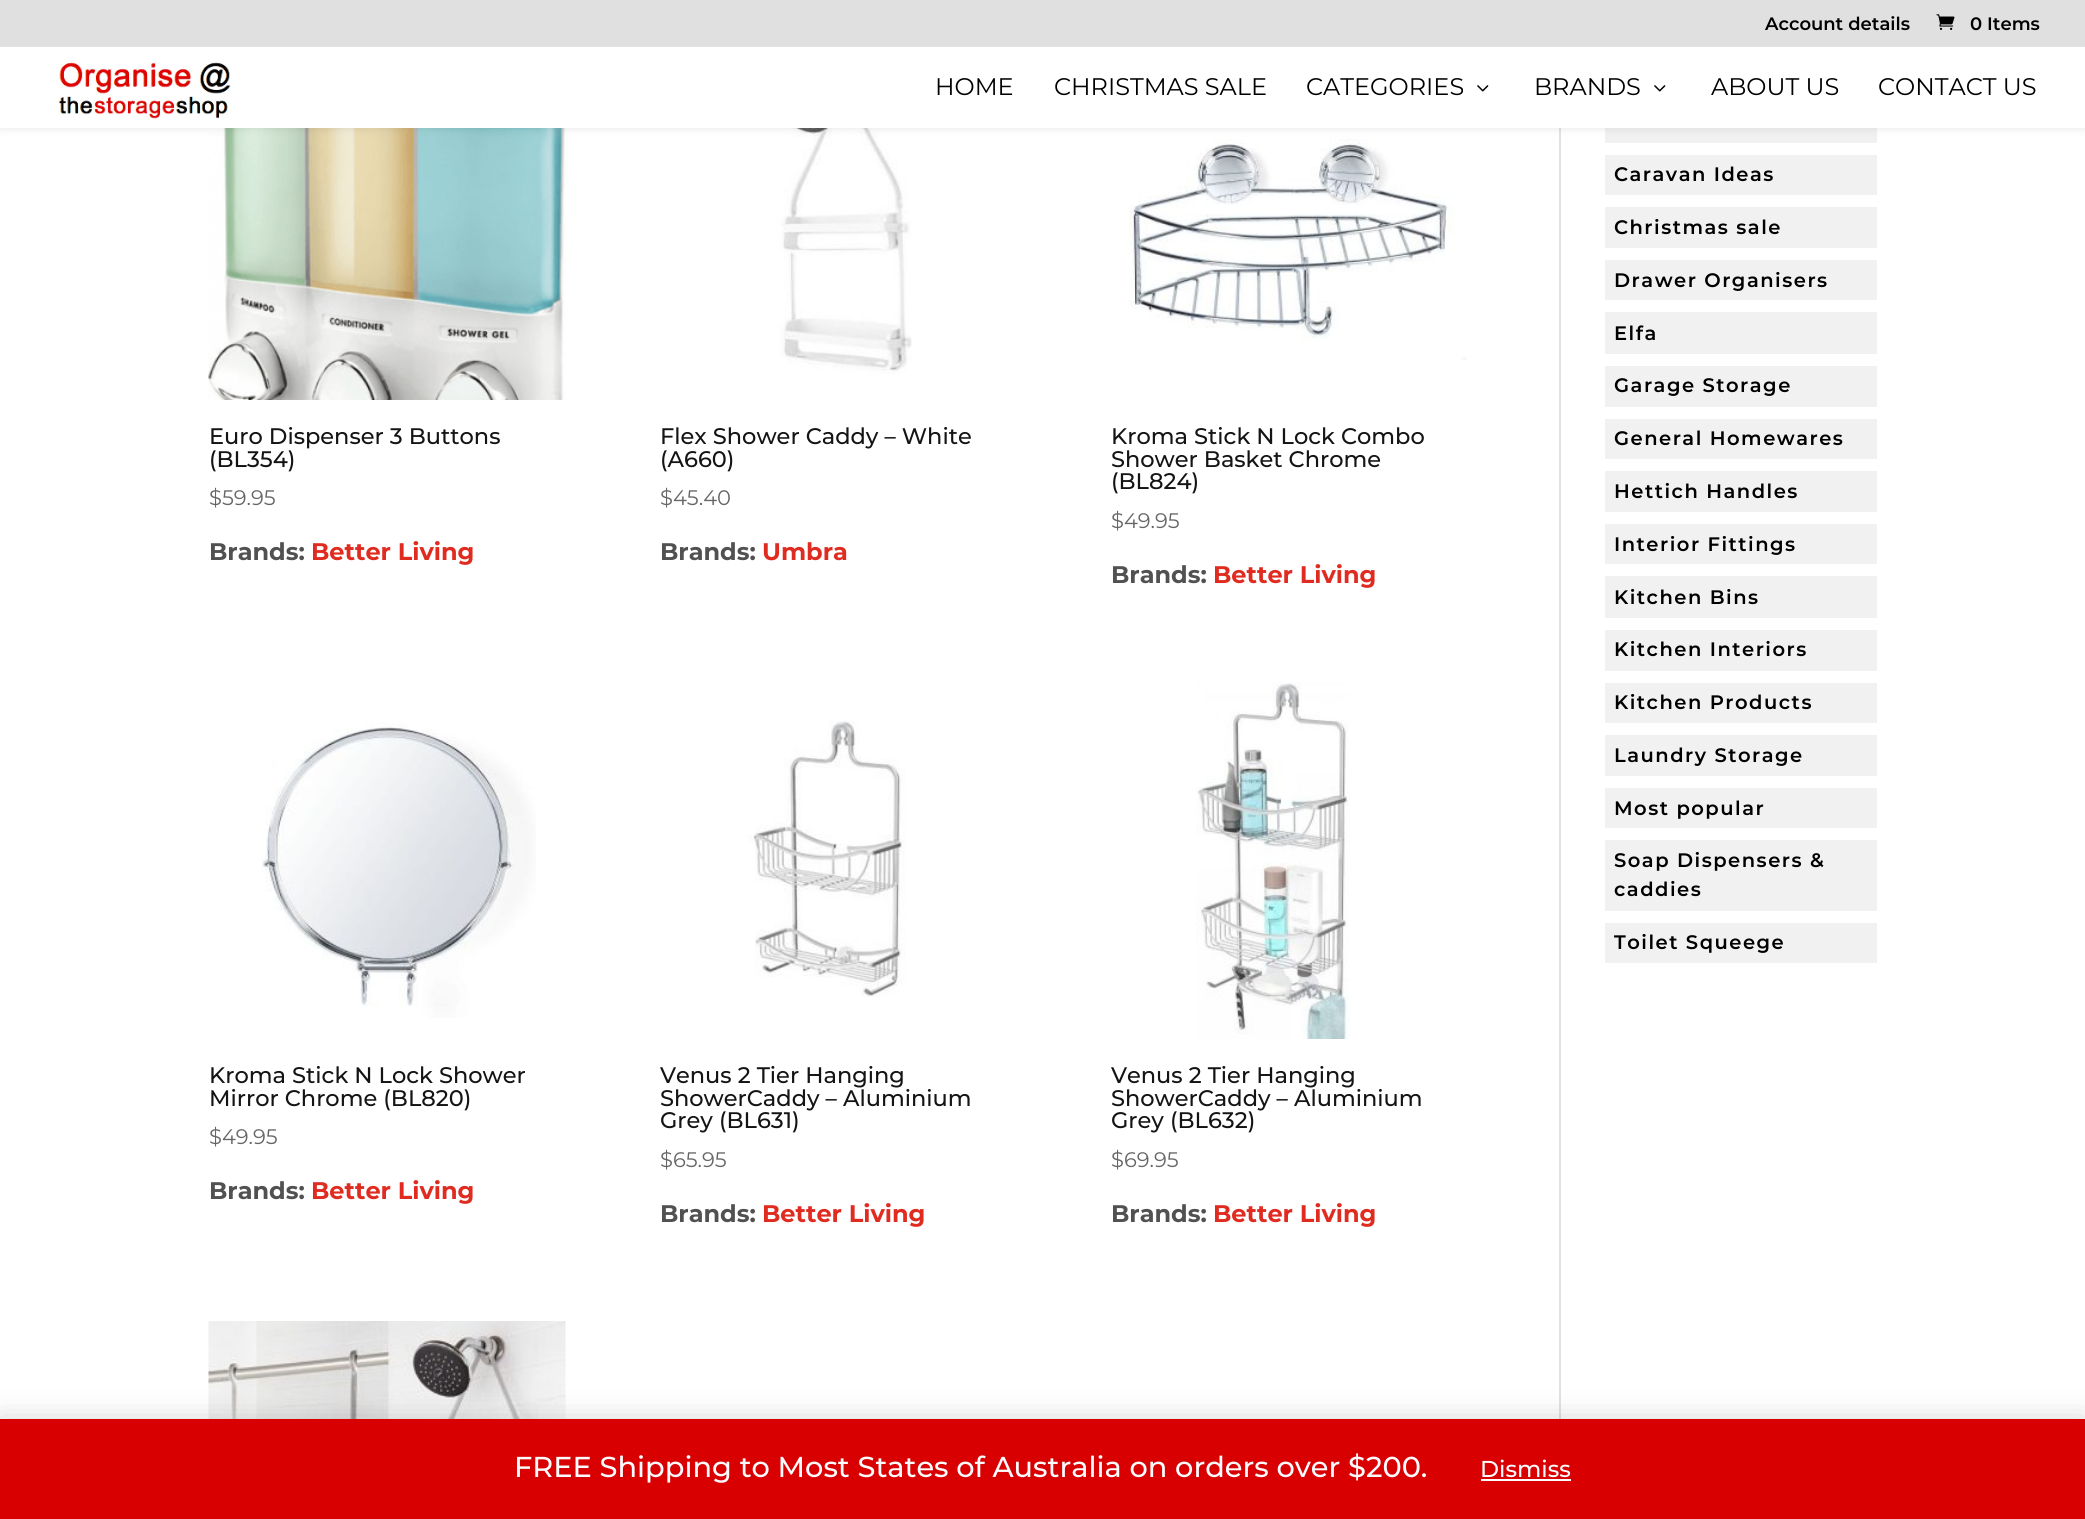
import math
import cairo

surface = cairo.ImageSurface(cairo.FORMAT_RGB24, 2085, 1519)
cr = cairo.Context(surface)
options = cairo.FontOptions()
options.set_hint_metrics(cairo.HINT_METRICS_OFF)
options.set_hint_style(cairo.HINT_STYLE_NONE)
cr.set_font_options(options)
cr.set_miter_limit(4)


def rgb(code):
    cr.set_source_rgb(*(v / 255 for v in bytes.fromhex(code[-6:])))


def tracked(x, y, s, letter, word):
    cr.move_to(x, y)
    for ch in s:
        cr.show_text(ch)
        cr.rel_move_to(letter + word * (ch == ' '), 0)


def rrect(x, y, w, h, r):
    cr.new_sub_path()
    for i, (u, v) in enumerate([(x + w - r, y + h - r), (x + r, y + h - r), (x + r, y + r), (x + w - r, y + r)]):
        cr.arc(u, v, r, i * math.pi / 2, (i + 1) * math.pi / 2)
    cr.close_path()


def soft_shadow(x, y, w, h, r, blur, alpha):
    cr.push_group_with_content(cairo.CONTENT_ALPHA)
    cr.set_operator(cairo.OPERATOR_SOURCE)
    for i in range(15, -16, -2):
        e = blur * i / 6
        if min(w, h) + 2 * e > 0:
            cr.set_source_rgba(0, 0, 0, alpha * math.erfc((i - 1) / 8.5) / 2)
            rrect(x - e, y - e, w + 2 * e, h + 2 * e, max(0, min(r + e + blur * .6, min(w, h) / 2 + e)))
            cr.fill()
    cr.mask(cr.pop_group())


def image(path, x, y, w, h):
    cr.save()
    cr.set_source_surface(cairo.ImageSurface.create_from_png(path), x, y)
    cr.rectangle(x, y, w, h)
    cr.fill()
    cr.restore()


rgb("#ffffff")
cr.paint()
rgb("#e2e2e2")
cr.rectangle(1559, 128, 2, 1291)
cr.fill()
image("img/4.png", 208, 128, 358, 272)
image("img/5.png", 775, 128, 137, 247)
image("img/6.png", 1129, 138, 338, 222)
rgb("#f1f1f1")
cr.rectangle(1605, 128, 272, 15)
cr.fill()
rgb("#000000")
soft_shadow(0, 47, 2085, 81, 0, 5, 0.1)
rgb("#e0e0e0")
cr.rectangle(0, 0, 2085, 47)
cr.fill()
image("img/1.png", 1936, 14, 19, 16)
rgb("#ffffff")
cr.rectangle(0, 47, 2085, 81)
cr.fill()
image("img/2.png", 58, 62, 173, 57)
image("img/3.png", 1477, 85, 12, 7)
image("img/3.png", 1654, 85, 12, 7)
image("img/7.png", 261, 721, 275, 297)
image("img/8.png", 747, 720, 159, 277)
image("img/9.png", 1196, 682, 154, 357)
image("img/10.png", 208, 1321, 358, 98)
for x, y, w, h, color in [
    (1605, 155, 272, 40, "#f1f1f1"),
    (1605, 207, 272, 41, "#f1f1f1"),
    (1605, 260, 272, 40, "#f1f1f1"),
    (1605, 312, 272, 42, "#f1f1f1"),
    (1605, 366, 272, 41, "#f1f1f1"),
    (1605, 419, 272, 40, "#f1f1f1"),
    (1605, 471, 272, 41, "#f1f1f1"),
    (1605, 524, 272, 40, "#f1f1f1"),
    (1605, 576, 272, 42, "#f1f1f1"),
    (1605, 630, 272, 41, "#f1f1f1"),
    (1605, 683, 272, 40, "#f1f1f1"),
    (1605, 735, 272, 41, "#f1f1f1"),
    (1605, 788, 272, 40, "#f1f1f1"),
    (1605, 840, 272, 71, "#f1f1f1"),
    (1605, 923, 272, 40, "#f1f1f1"),
]:
    rgb(color)
    cr.rectangle(x, y, w, h)
    cr.fill()
rgb("#000000")
soft_shadow(0, 1421, 2085, 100, 0, 14.5, 0.2)
rgb("#d80000")
cr.rectangle(0, 1419, 2085, 100)
cr.fill()
rgb("#fcfbfe")
cr.rectangle(1481, 1479, 90, 2)
cr.fill()
cr.select_font_face("Montserrat SemiBold")
cr.set_font_size(18)
rgb("#000000")
cr.move_to(1765, 30)
cr.show_text("Account details")
cr.move_to(1970, 30)
cr.show_text("0 Items")
cr.select_font_face("Montserrat")
cr.set_font_size(24)
for x, y, s in [
    (935, 95, "HOME"),
    (1054, 95, "CHRISTMAS SALE"),
    (1306, 95, "CATEGORIES"),
    (1534, 95, "BRANDS"),
    (1711, 95, "ABOUT US"),
    (1878, 95, "CONTACT US"),
]:
    cr.move_to(x, y)
    cr.show_text(s)
cr.select_font_face("Montserrat Medium")
cr.set_font_size(22.5)
rgb("#141414")
cr.move_to(209, 444)
cr.show_text("Euro Dispenser 3 Buttons")
cr.move_to(209, 467)
cr.show_text("(BL354)")
cr.select_font_face("Montserrat")
cr.set_font_size(21)
rgb("#666666")
cr.move_to(209, 505)
cr.show_text("$59.95")
cr.select_font_face("Montserrat", cairo.FONT_SLANT_NORMAL, cairo.FONT_WEIGHT_BOLD)
cr.set_font_size(24)
rgb("#515151")
cr.move_to(209, 560)
cr.show_text("Brands:")
rgb("#e02b20")
cr.move_to(311, 560)
cr.show_text("Better Living")
cr.select_font_face("Montserrat Medium")
cr.set_font_size(22.5)
rgb("#141414")
cr.move_to(660, 444)
cr.show_text("Flex Shower Caddy – White")
cr.move_to(660, 467)
cr.show_text("(A660)")
cr.select_font_face("Montserrat")
cr.set_font_size(21)
rgb("#666666")
cr.move_to(660, 505)
cr.show_text("$45.40")
cr.select_font_face("Montserrat", cairo.FONT_SLANT_NORMAL, cairo.FONT_WEIGHT_BOLD)
cr.set_font_size(24)
rgb("#515151")
cr.move_to(660, 560)
cr.show_text("Brands:")
rgb("#e02b20")
cr.move_to(762, 560)
cr.show_text("Umbra")
cr.select_font_face("Montserrat Medium")
cr.set_font_size(22.5)
rgb("#141414")
for x, y, s in [
    (1111, 444, "Kroma Stick N Lock Combo"),
    (1111, 467, "Shower Basket Chrome"),
    (1111, 489, "(BL824)"),
]:
    cr.move_to(x, y)
    cr.show_text(s)
cr.select_font_face("Montserrat")
cr.set_font_size(21)
rgb("#666666")
cr.move_to(1111, 528)
cr.show_text("$49.95")
cr.select_font_face("Montserrat", cairo.FONT_SLANT_NORMAL, cairo.FONT_WEIGHT_BOLD)
cr.set_font_size(24)
rgb("#515151")
cr.move_to(1111, 583)
cr.show_text("Brands:")
rgb("#e02b20")
cr.move_to(1213, 583)
cr.show_text("Better Living")
cr.select_font_face("Montserrat Medium")
cr.set_font_size(22.5)
rgb("#141414")
cr.move_to(209, 1083)
cr.show_text("Kroma Stick N Lock Shower")
cr.move_to(209, 1106)
cr.show_text("Mirror Chrome (BL820)")
cr.select_font_face("Montserrat")
cr.set_font_size(21)
rgb("#666666")
cr.move_to(209, 1144)
cr.show_text("$49.95")
cr.select_font_face("Montserrat", cairo.FONT_SLANT_NORMAL, cairo.FONT_WEIGHT_BOLD)
cr.set_font_size(24)
rgb("#515151")
cr.move_to(209, 1199)
cr.show_text("Brands:")
rgb("#e02b20")
cr.move_to(311, 1199)
cr.show_text("Better Living")
cr.select_font_face("Montserrat Medium")
cr.set_font_size(22.5)
rgb("#141414")
for x, y, s in [
    (660, 1083, "Venus 2 Tier Hanging"),
    (660, 1106, "ShowerCaddy – Aluminium"),
    (660, 1128, "Grey (BL631)"),
]:
    cr.move_to(x, y)
    cr.show_text(s)
cr.select_font_face("Montserrat")
cr.set_font_size(21)
rgb("#666666")
cr.move_to(660, 1167)
cr.show_text("$65.95")
cr.select_font_face("Montserrat", cairo.FONT_SLANT_NORMAL, cairo.FONT_WEIGHT_BOLD)
cr.set_font_size(24)
rgb("#515151")
cr.move_to(660, 1222)
cr.show_text("Brands:")
rgb("#e02b20")
cr.move_to(762, 1222)
cr.show_text("Better Living")
cr.select_font_face("Montserrat Medium")
cr.set_font_size(22.5)
rgb("#141414")
for x, y, s in [
    (1111, 1083, "Venus 2 Tier Hanging"),
    (1111, 1106, "ShowerCaddy – Aluminium"),
    (1111, 1128, "Grey (BL632)"),
]:
    cr.move_to(x, y)
    cr.show_text(s)
cr.select_font_face("Montserrat")
cr.set_font_size(21)
rgb("#666666")
cr.move_to(1111, 1167)
cr.show_text("$69.95")
cr.select_font_face("Montserrat", cairo.FONT_SLANT_NORMAL, cairo.FONT_WEIGHT_BOLD)
cr.set_font_size(24)
rgb("#515151")
cr.move_to(1111, 1222)
cr.show_text("Brands:")
rgb("#e02b20")
cr.move_to(1213, 1222)
cr.show_text("Better Living")
cr.select_font_face("Montserrat SemiBold")
cr.set_font_size(19.5)
rgb("#000000")
for x, y, s in [
    (1614, 181, "Caravan Ideas"),
    (1614, 234, "Christmas sale"),
    (1614, 287, "Drawer Organisers"),
    (1614, 340, "Elfa"),
    (1614, 392, "Garage Storage"),
    (1614, 445, "General Homewares"),
    (1614, 498, "Hettich Handles"),
    (1614, 551, "Interior Fittings"),
    (1614, 604, "Kitchen Bins"),
    (1614, 656, "Kitchen Interiors"),
    (1614, 709, "Kitchen Products"),
    (1614, 762, "Laundry Storage"),
    (1614, 815, "Most popular"),
    (1614, 867, "Soap Dispensers &"),
    (1614, 896, "caddies"),
    (1614, 949, "Toilet Squeege"),
]:
    tracked(x, y, s, 1.5, 0)
cr.select_font_face("Montserrat Medium")
cr.set_font_size(28.8)
rgb("#fcfbfe")
cr.move_to(514, 1477)
cr.show_text("FREE Shipping to Most States of Australia on orders over $200.")
cr.set_font_size(23)
cr.move_to(1480, 1477)
cr.show_text("Dismiss")
surface.write_to_png("page.png")
